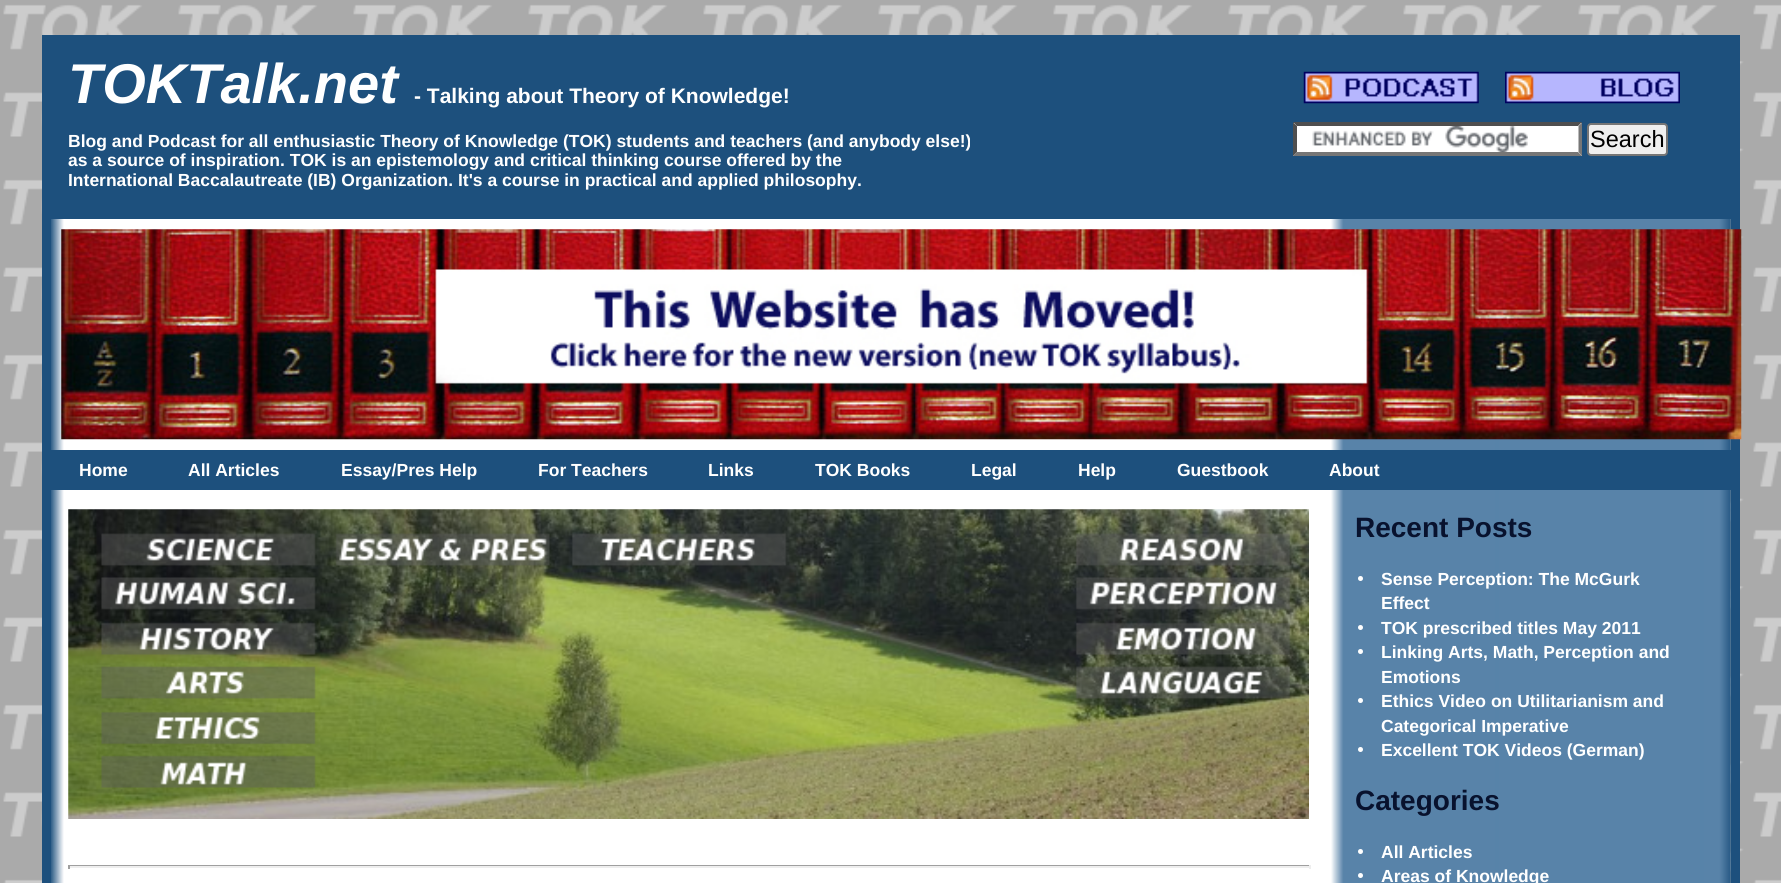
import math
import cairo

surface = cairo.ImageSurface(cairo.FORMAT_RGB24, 1781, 883)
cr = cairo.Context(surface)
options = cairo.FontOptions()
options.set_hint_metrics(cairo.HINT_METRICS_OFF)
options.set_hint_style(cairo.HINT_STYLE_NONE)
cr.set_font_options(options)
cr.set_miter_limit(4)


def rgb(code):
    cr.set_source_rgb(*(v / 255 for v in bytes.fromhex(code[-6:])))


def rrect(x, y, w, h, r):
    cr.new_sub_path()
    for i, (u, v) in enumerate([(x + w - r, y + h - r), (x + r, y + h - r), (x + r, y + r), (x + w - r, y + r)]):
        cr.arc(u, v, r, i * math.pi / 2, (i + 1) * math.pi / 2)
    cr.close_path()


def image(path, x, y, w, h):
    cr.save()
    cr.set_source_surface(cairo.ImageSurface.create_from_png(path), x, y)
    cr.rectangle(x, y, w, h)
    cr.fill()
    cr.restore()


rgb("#ffffff")
cr.paint()
image("img/1.png", 0, 0, 1781, 883)
image("img/2.png", 51, 219, 1680, 664)
cr.rectangle(46.5, 39.5, 1689, 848)
rgb("#1d507d")
cr.set_line_width(9)
cr.stroke()
cr.rectangle(51, 44, 1680, 175)
cr.fill()
image("img/3.png", 1303, 71, 176, 33)
image("img/4.png", 1505, 71, 175, 33)
rgb("#ffffff")
cr.rectangle(1293, 123, 289, 33)
cr.fill()
image("img/5.png", 1312, 126, 216, 26)
rgb("#4f4f4f")
cr.new_path()
cr.move_to(1293, 122)
cr.line_to(1582, 122)
cr.line_to(1578, 126)
cr.line_to(1297, 126)
cr.close_path()
cr.fill()
rgb("#767676")
cr.new_path()
cr.move_to(1582, 122.5)
cr.line_to(1582, 156)
cr.line_to(1578.5, 152)
cr.line_to(1578.5, 126)
cr.close_path()
cr.fill()
cr.new_path()
cr.move_to(1582, 156)
cr.line_to(1293, 156)
cr.line_to(1297, 152)
cr.line_to(1578, 152)
cr.close_path()
cr.fill()
rgb("#4f4f4f")
cr.new_path()
cr.move_to(1293, 156)
cr.line_to(1293, 122.5)
cr.line_to(1297, 126)
cr.line_to(1297, 152)
cr.close_path()
cr.fill()
rgb("#efefef")
rrect(1588, 124, 79, 31, 3)
cr.fill_preserve()
rgb("#767676")
cr.set_line_width(2)
cr.stroke()
image("img/6.png", 61, 229, 1681, 211)
rgb("#1d507d")
cr.rectangle(51, 450, 1680, 40)
cr.fill()
image("img/7.png", 68, 509, 1241, 310)
image("img/8.png", 101, 533, 1189, 255)
for x, y, w, h, color in [
    (68, 865, 1243, 1, "#9f9f9f"),
    (1309, 865, 2, 4, "#eeeeee"),
    (68, 866, 1243, 2, "#eeeeee"),
    (68, 865, 2, 4, "#9f9f9f"),
]:
    rgb(color)
    cr.rectangle(x, y, w, h)
    cr.fill()
rgb("#ffffff")
cr.arc(1360.5, 578.5, 2.5, 0, 2 * math.pi)
cr.fill()
cr.arc(1360.5, 627.5, 2.5, 0, 2 * math.pi)
cr.fill()
cr.arc(1360.5, 651.5, 2.5, 0, 2 * math.pi)
cr.fill()
cr.arc(1360.5, 700.5, 2.5, 0, 2 * math.pi)
cr.fill()
cr.arc(1360.5, 749.5, 2.5, 0, 2 * math.pi)
cr.fill()
cr.arc(1360.5, 851.5, 2.5, 0, 2 * math.pi)
cr.fill()
cr.arc(1360.5, 875.5, 2.5, 0, 2 * math.pi)
cr.fill()
cr.select_font_face("Liberation Sans", cairo.FONT_SLANT_ITALIC, cairo.FONT_WEIGHT_BOLD)
cr.set_font_size(56)
cr.move_to(68, 103)
cr.show_text("TOKTalk.net")
cr.select_font_face("Liberation Sans", cairo.FONT_SLANT_NORMAL, cairo.FONT_WEIGHT_BOLD)
cr.set_font_size(21)
cr.move_to(414, 103)
cr.show_text("- Talking about Theory of Knowledge!")
cr.set_font_size(17.5)
for x, y, s in [
    (68, 147, "Blog and Podcast for all enthusiastic Theory of Knowledge (TOK) students and teachers (and anybody else!)"),
    (68, 166, "as a source of inspiration. TOK is an epistemology and critical thinking course offered by the"),
    (68, 186, "International Baccalautreate (IB) Organization. It's a course in practical and applied philosophy."),
]:
    cr.move_to(x, y)
    cr.show_text(s)
cr.select_font_face("Liberation Sans")
cr.set_font_size(23.5)
rgb("#000000")
cr.move_to(1590, 147)
cr.show_text("Search")
cr.select_font_face("Liberation Sans", cairo.FONT_SLANT_NORMAL, cairo.FONT_WEIGHT_BOLD)
cr.set_font_size(17.5)
rgb("#ffffff")
for x, y, s in [
    (79, 476, "Home"),
    (188, 476, "All Articles"),
    (341, 476, "Essay/Pres Help"),
    (538, 476, "For Teachers"),
    (708, 476, "Links"),
    (815, 476, "TOK Books"),
    (971, 476, "Legal"),
    (1078, 476, "Help"),
    (1177, 476, "Guestbook"),
    (1329, 476, "About"),
]:
    cr.move_to(x, y)
    cr.show_text(s)
cr.set_font_size(28)
rgb("#08122e")
cr.move_to(1355, 537)
cr.show_text("Recent Posts")
cr.set_font_size(17.5)
rgb("#ffffff")
for x, y, s in [
    (1381, 585, "Sense Perception: The McGurk"),
    (1381, 609, "Effect"),
    (1381, 634, "TOK prescribed titles May 2011"),
    (1381, 658, "Linking Arts, Math, Perception and"),
    (1381, 683, "Emotions"),
    (1381, 707, "Ethics Video on Utilitarianism and"),
    (1381, 732, "Categorical Imperative"),
    (1381, 756, "Excellent TOK Videos (German)"),
]:
    cr.move_to(x, y)
    cr.show_text(s)
cr.set_font_size(28)
rgb("#08122e")
cr.move_to(1355, 810)
cr.show_text("Categories")
cr.set_font_size(17.5)
rgb("#ffffff")
cr.move_to(1381, 858)
cr.show_text("All Articles")
cr.move_to(1381, 882)
cr.show_text("Areas of Knowledge")
surface.write_to_png("page.png")
